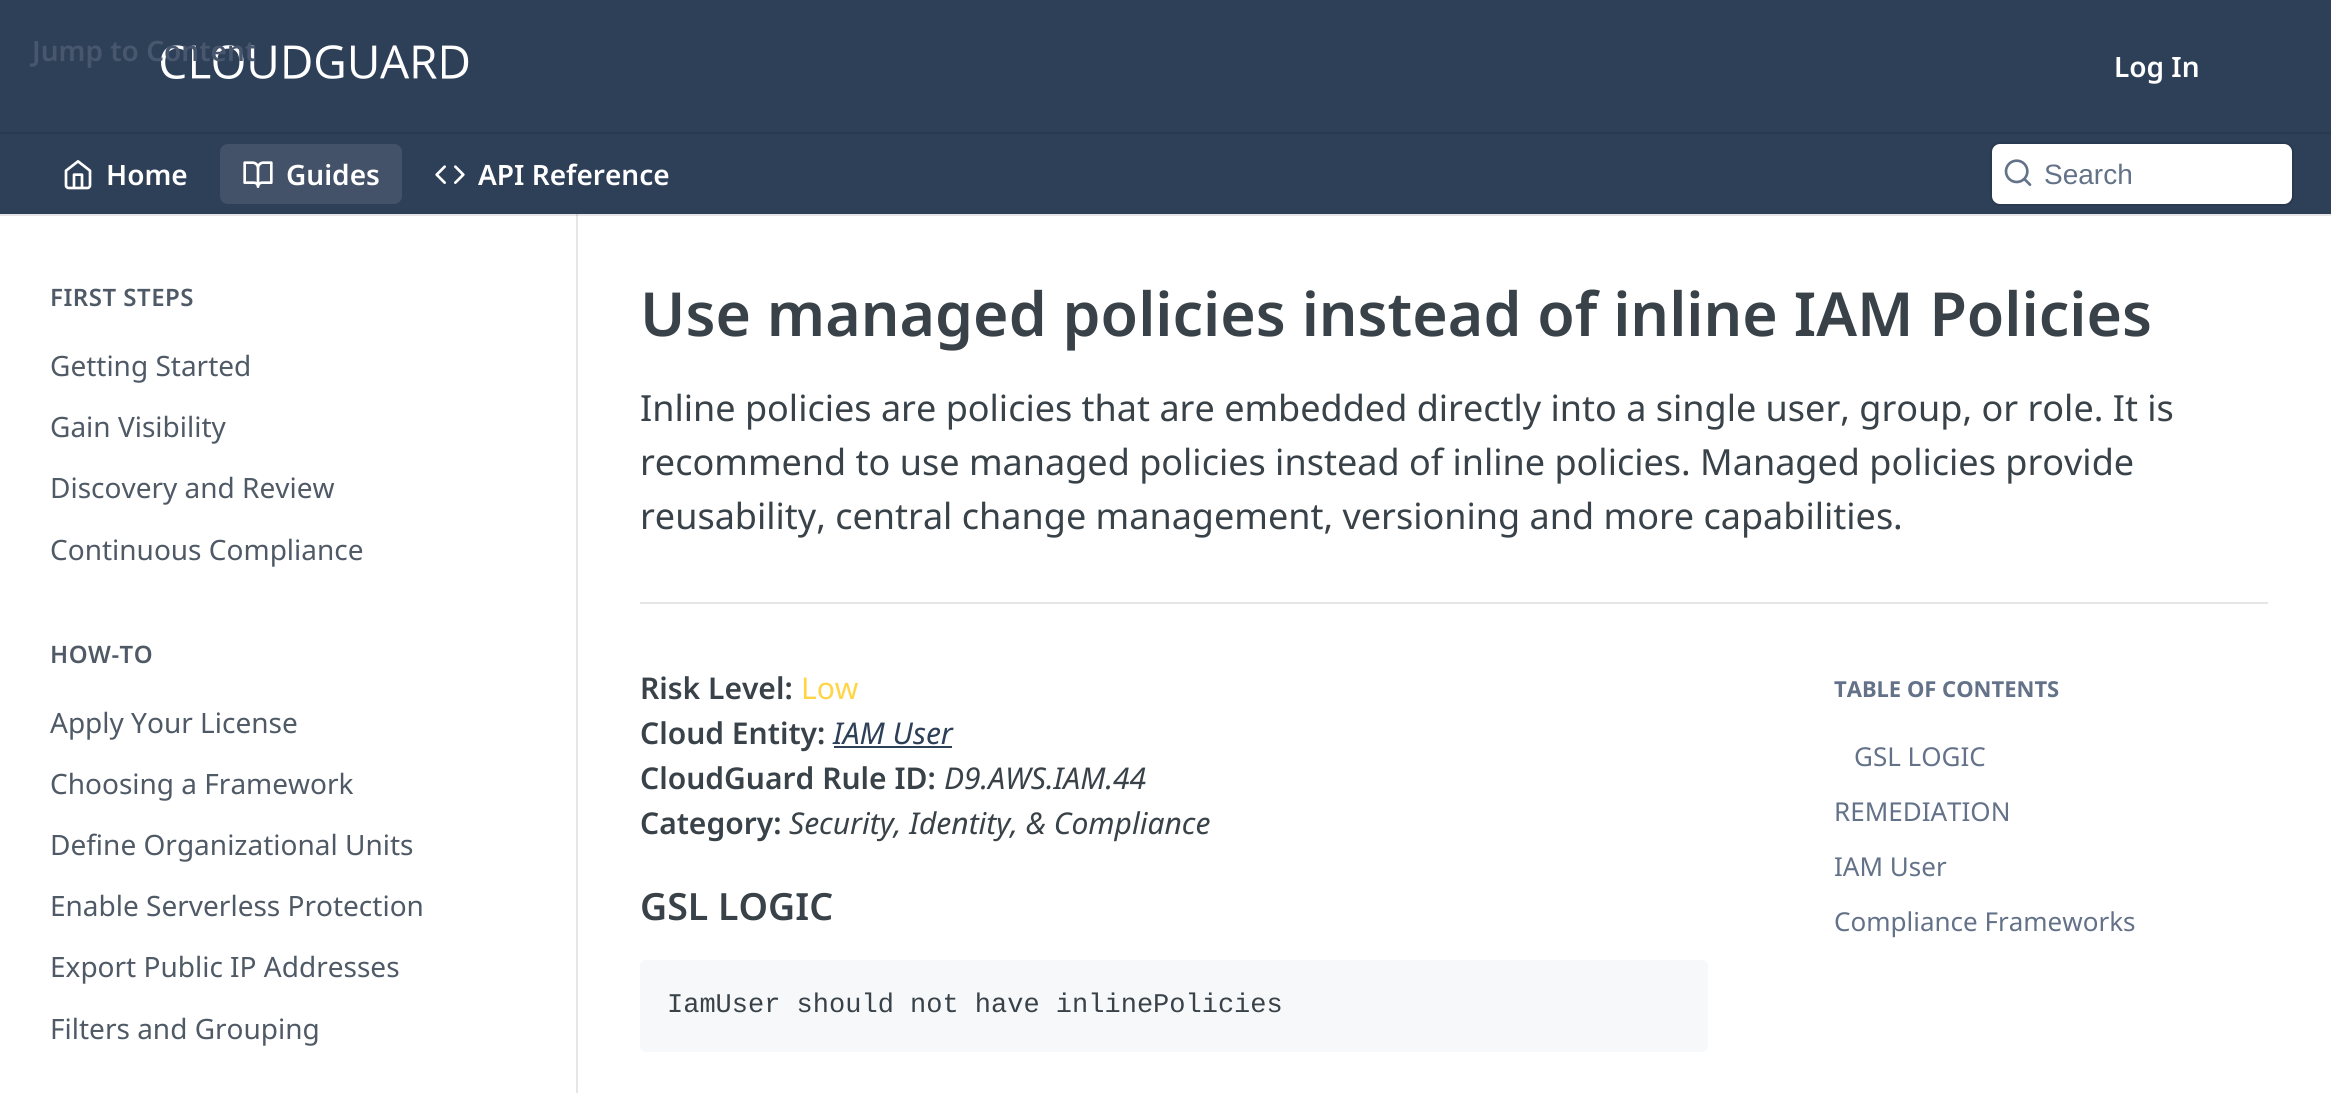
import math
import cairo

surface = cairo.ImageSurface(cairo.FORMAT_RGB24, 2331, 1093)
cr = cairo.Context(surface)
options = cairo.FontOptions()
options.set_hint_metrics(cairo.HINT_METRICS_OFF)
options.set_hint_style(cairo.HINT_STYLE_NONE)
cr.set_font_options(options)
cr.set_miter_limit(4)


def rgb(code):
    cr.set_source_rgb(*(v / 255 for v in bytes.fromhex(code[-6:])))


def tracked(x, y, s, letter, word):
    cr.move_to(x, y)
    for ch in s:
        cr.show_text(ch)
        cr.rel_move_to(letter + word * (ch == ' '), 0)


def rrect(x, y, w, h, r):
    cr.new_sub_path()
    for i, (u, v) in enumerate([(x + w - r, y + h - r), (x + r, y + h - r), (x + r, y + r), (x + w - r, y + r)]):
        cr.arc(u, v, r, i * math.pi / 2, (i + 1) * math.pi / 2)
    cr.close_path()


def image(path, x, y, w, h):
    cr.save()
    cr.set_source_surface(cairo.ImageSurface.create_from_png(path), x, y)
    cr.rectangle(x, y, w, h)
    cr.fill()
    cr.restore()


rgb("#ffffff")
cr.paint()
for x, y, w, h, color in [
    (0, 214, 2331, 2, "#e6e6e6"),
    (0, 0, 2331, 214, "#2e3f58"),
    (0, 132, 2331, 2, "#29394f"),
]:
    rgb(color)
    cr.rectangle(x, y, w, h)
    cr.fill()
image("img/1.png", 161, 45, 308, 34)
image("img/2.png", 64, 160, 28, 30)
rgb("#435269")
rrect(220, 144, 182, 60, 8)
cr.fill()
image("img/3.png", 243, 161, 30, 27)
image("img/4.png", 435, 165, 30, 19)
rrect(1991, 143, 302, 62, 9)
rgb("#29394f")
cr.stroke()
rgb("#ffffff")
rrect(1992, 144, 300, 60, 8)
cr.fill()
image("img/5.png", 2004, 159, 28, 27)
for x, y, w, h, color in [
    (576, 214, 2, 879, "#e6e6e6"),
    (576, 214, 2, 2, "#cfcfcf"),
    (640, 602, 1628, 2, "#e6e6e6"),
    (834, 746, 118, 2, "#2e3f58"),
]:
    rgb(color)
    cr.rectangle(x, y, w, h)
    cr.fill()
rgb("#f6f8fa")
rrect(640, 960, 1068, 92, 6)
cr.fill()
cr.select_font_face("Noto Sans SemiBold")
cr.set_font_size(28)
rgb("#48576d")
cr.move_to(32, 61)
cr.show_text("Jump to Content")
rgb("#ffffff")
for x, y, s in [
    (2114, 77, "Log In"),
    (106, 185, "Home"),
    (286, 185, "Guides"),
    (478, 185, "API Reference"),
]:
    cr.move_to(x, y)
    cr.show_text(s)
cr.select_font_face("Liberation Sans")
rgb("#637288")
cr.move_to(2044, 184)
cr.show_text("Search")
cr.select_font_face("Noto Sans SemiBold")
cr.set_font_size(24)
rgb("#4f5a66")
tracked(50, 306, "FIRST STEPS", 0.5, 0)
cr.select_font_face("Noto Sans")
cr.set_font_size(28)
for x, y, s in [
    (50, 376, "Getting Started"),
    (50, 437, "Gain Visibility"),
    (50, 498, "Discovery and Review"),
    (50, 560, "Continuous Compliance"),
]:
    cr.move_to(x, y)
    cr.show_text(s)
cr.select_font_face("Noto Sans SemiBold")
cr.set_font_size(24)
tracked(50, 663, "HOW-TO", 0.5, 0)
cr.select_font_face("Noto Sans")
cr.set_font_size(28)
for x, y, s in [
    (50, 733, "Apply Your License"),
    (50, 794, "Choosing a Framework"),
    (50, 855, "Define Organizational Units"),
    (50, 916, "Enable Serverless Protection"),
    (50, 977, "Export Public IP Addresses"),
    (50, 1039, "Filters and Grouping"),
]:
    cr.move_to(x, y)
    cr.show_text(s)
cr.select_font_face("Noto Sans SemiBold")
cr.set_font_size(60.8)
rgb("#384248")
cr.move_to(640, 336)
cr.show_text("Use managed policies instead of inline IAM Policies")
cr.select_font_face("Noto Sans")
cr.set_font_size(36)
for x, y, s in [
    (640, 421, "Inline policies are policies that are embedded directly into a single user, group, or role. It is"),
    (640, 475, "recommend to use managed policies instead of inline policies. Managed policies provide"),
    (640, 529, "reusability, central change management, versioning and more capabilities."),
]:
    cr.move_to(x, y)
    cr.show_text(s)
cr.select_font_face("Noto Sans SemiBold")
cr.set_font_size(30)
cr.move_to(640, 699)
cr.show_text("Risk Level:")
cr.select_font_face("Noto Sans")
rgb("#ffd546")
cr.move_to(801, 699)
cr.show_text("Low")
cr.select_font_face("Noto Sans SemiBold")
rgb("#384248")
cr.move_to(640, 744)
cr.show_text("Cloud Entity:")
cr.select_font_face("Noto Sans", cairo.FONT_SLANT_ITALIC)
rgb("#2e3f58")
cr.move_to(833, 744)
cr.show_text("IAM User")
cr.select_font_face("Noto Sans SemiBold")
rgb("#384248")
cr.move_to(640, 789)
cr.show_text("CloudGuard Rule ID:")
cr.select_font_face("Noto Sans", cairo.FONT_SLANT_ITALIC)
cr.move_to(944, 789)
cr.show_text("D9.AWS.IAM.44")
cr.select_font_face("Noto Sans SemiBold")
cr.move_to(640, 834)
cr.show_text("Category:")
cr.select_font_face("Noto Sans", cairo.FONT_SLANT_ITALIC)
cr.move_to(789, 834)
cr.show_text("Security, Identity, & Compliance")
cr.select_font_face("Noto Sans SemiBold")
cr.set_font_size(37.5)
cr.move_to(640, 920)
cr.show_text("GSL LOGIC")
cr.select_font_face("Liberation Mono")
cr.set_font_size(27)
cr.move_to(667, 1012)
cr.show_text("IamUser should not have inlinePolicies")
cr.select_font_face("Noto Sans", cairo.FONT_SLANT_NORMAL, cairo.FONT_WEIGHT_BOLD)
cr.set_font_size(22)
rgb("#637288")
cr.move_to(1834, 697)
cr.show_text("TABLE OF CONTENTS")
cr.select_font_face("Noto Sans")
cr.set_font_size(26)
for x, y, s in [
    (1854, 766, "GSL LOGIC"),
    (1834, 821, "REMEDIATION"),
    (1834, 876, "IAM User"),
    (1834, 931, "Compliance Frameworks"),
]:
    cr.move_to(x, y)
    cr.show_text(s)
surface.write_to_png("page.png")
